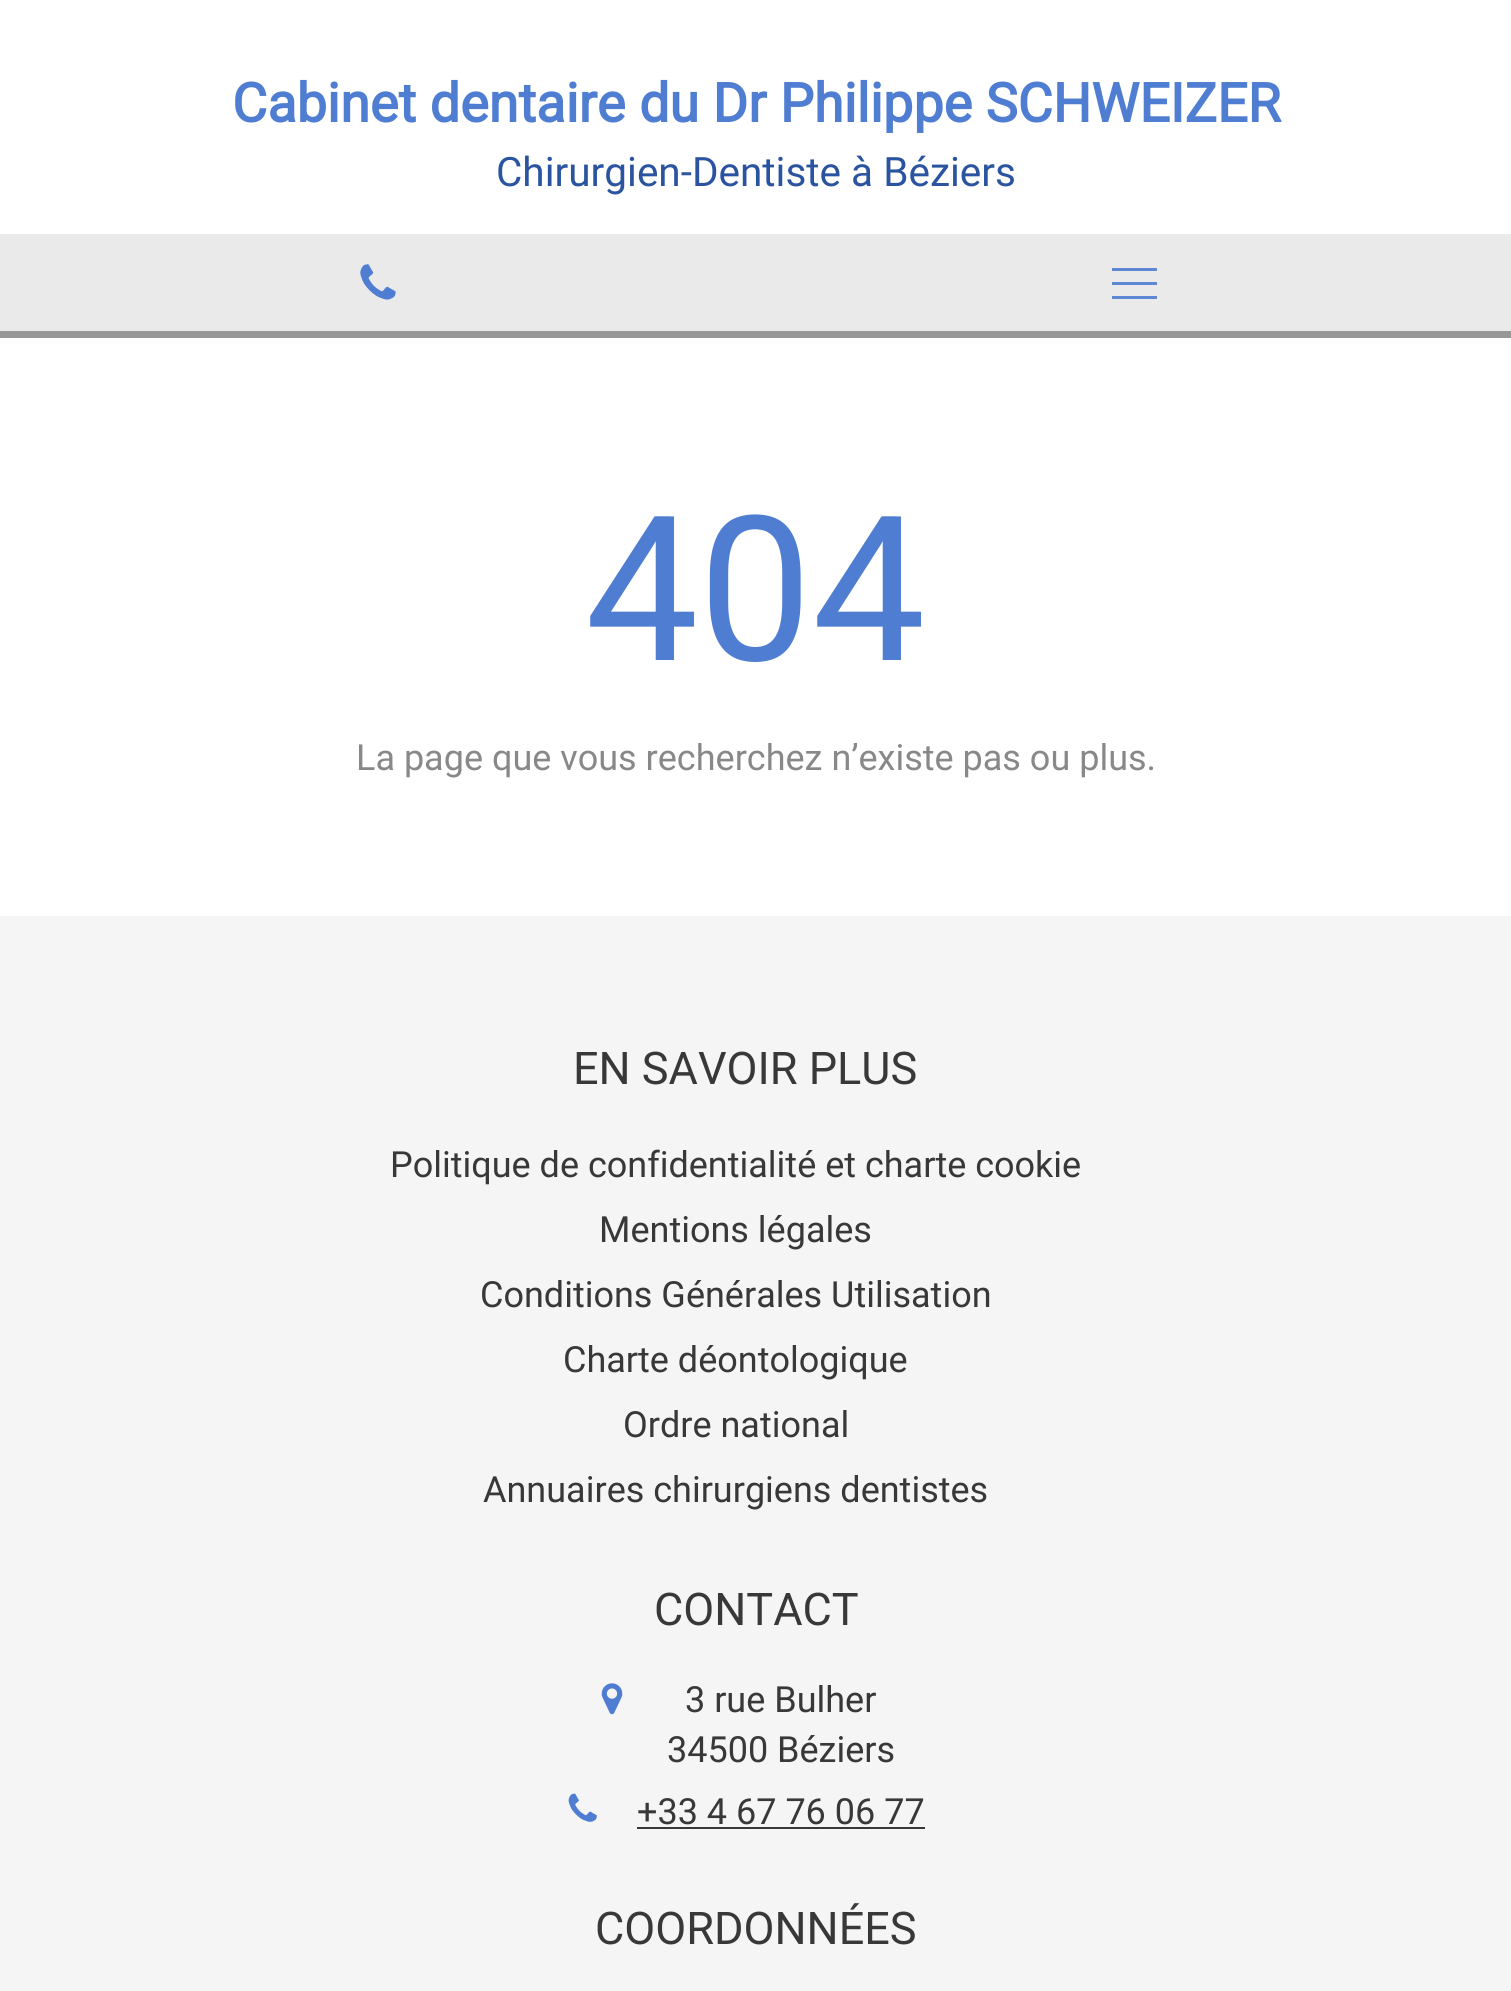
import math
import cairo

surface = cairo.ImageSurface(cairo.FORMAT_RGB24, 1511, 1991)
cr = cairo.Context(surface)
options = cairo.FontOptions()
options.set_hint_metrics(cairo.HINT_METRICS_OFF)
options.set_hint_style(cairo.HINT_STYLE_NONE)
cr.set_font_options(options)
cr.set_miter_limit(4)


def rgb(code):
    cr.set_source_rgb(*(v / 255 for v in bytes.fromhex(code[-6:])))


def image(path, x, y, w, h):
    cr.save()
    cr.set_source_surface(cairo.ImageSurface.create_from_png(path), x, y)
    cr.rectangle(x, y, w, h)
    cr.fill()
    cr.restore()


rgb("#ffffff")
cr.paint()
rgb("#eaeaea")
cr.rectangle(0, 234, 1511, 97)
cr.fill()
image("img/1.png", 360, 264, 36, 36)
for x, y, w, h, color in [
    (1112, 268, 45, 3, "#5f88d4"),
    (1112, 282, 45, 3, "#5f88d4"),
    (1112, 296, 45, 3, "#5f88d4"),
    (0, 331, 1511, 7, "#979797"),
    (0, 916, 1511, 1075, "#f5f5f5"),
]:
    rgb(color)
    cr.rectangle(x, y, w, h)
    cr.fill()
image("img/2.png", 601, 1683, 22, 32)
image("img/3.png", 568, 1793, 29, 29)
rgb("#383838")
cr.rectangle(637, 1827, 288, 2)
cr.fill()
cr.select_font_face("Roboto", cairo.FONT_SLANT_NORMAL, cairo.FONT_WEIGHT_BOLD)
cr.set_font_size(54)
rgb("#4f7dd2")
cr.move_to(232, 122)
cr.show_text("Cabinet dentaire du Dr Philippe SCHWEIZER")
cr.select_font_face("Roboto")
cr.set_font_size(40.5)
rgb("#2a53a0")
cr.move_to(496, 186)
cr.show_text("Chirurgien-Dentiste à Béziers")
cr.set_font_size(202)
rgb("#4f7dd2")
cr.move_to(585, 660)
cr.show_text("404")
cr.set_font_size(36)
rgb("#888888")
cr.move_to(356, 770)
cr.show_text("La page que vous recherchez n’existe pas ou plus.")
cr.set_font_size(45)
rgb("#383838")
cr.move_to(573, 1084)
cr.show_text("EN SAVOIR PLUS")
cr.set_font_size(36)
for x, y, s in [
    (390, 1177, "Politique de confidentialité et charte cookie"),
    (599, 1242, "Mentions légales"),
    (480, 1307, "Conditions Générales Utilisation"),
    (563, 1372, "Charte déontologique"),
    (623, 1437, "Ordre national"),
    (483, 1502, "Annuaires chirurgiens dentistes"),
]:
    cr.move_to(x, y)
    cr.show_text(s)
cr.set_font_size(45)
cr.move_to(654, 1625)
cr.show_text("CONTACT")
cr.set_font_size(36)
for x, y, s in [
    (685, 1712, "3 rue Bulher"),
    (667, 1762, "34500 Béziers"),
    (637, 1824, "+33 4 67 76 06 77"),
]:
    cr.move_to(x, y)
    cr.show_text(s)
cr.set_font_size(45)
cr.move_to(595, 1944)
cr.show_text("COORDONNÉES")
surface.write_to_png("page.png")
